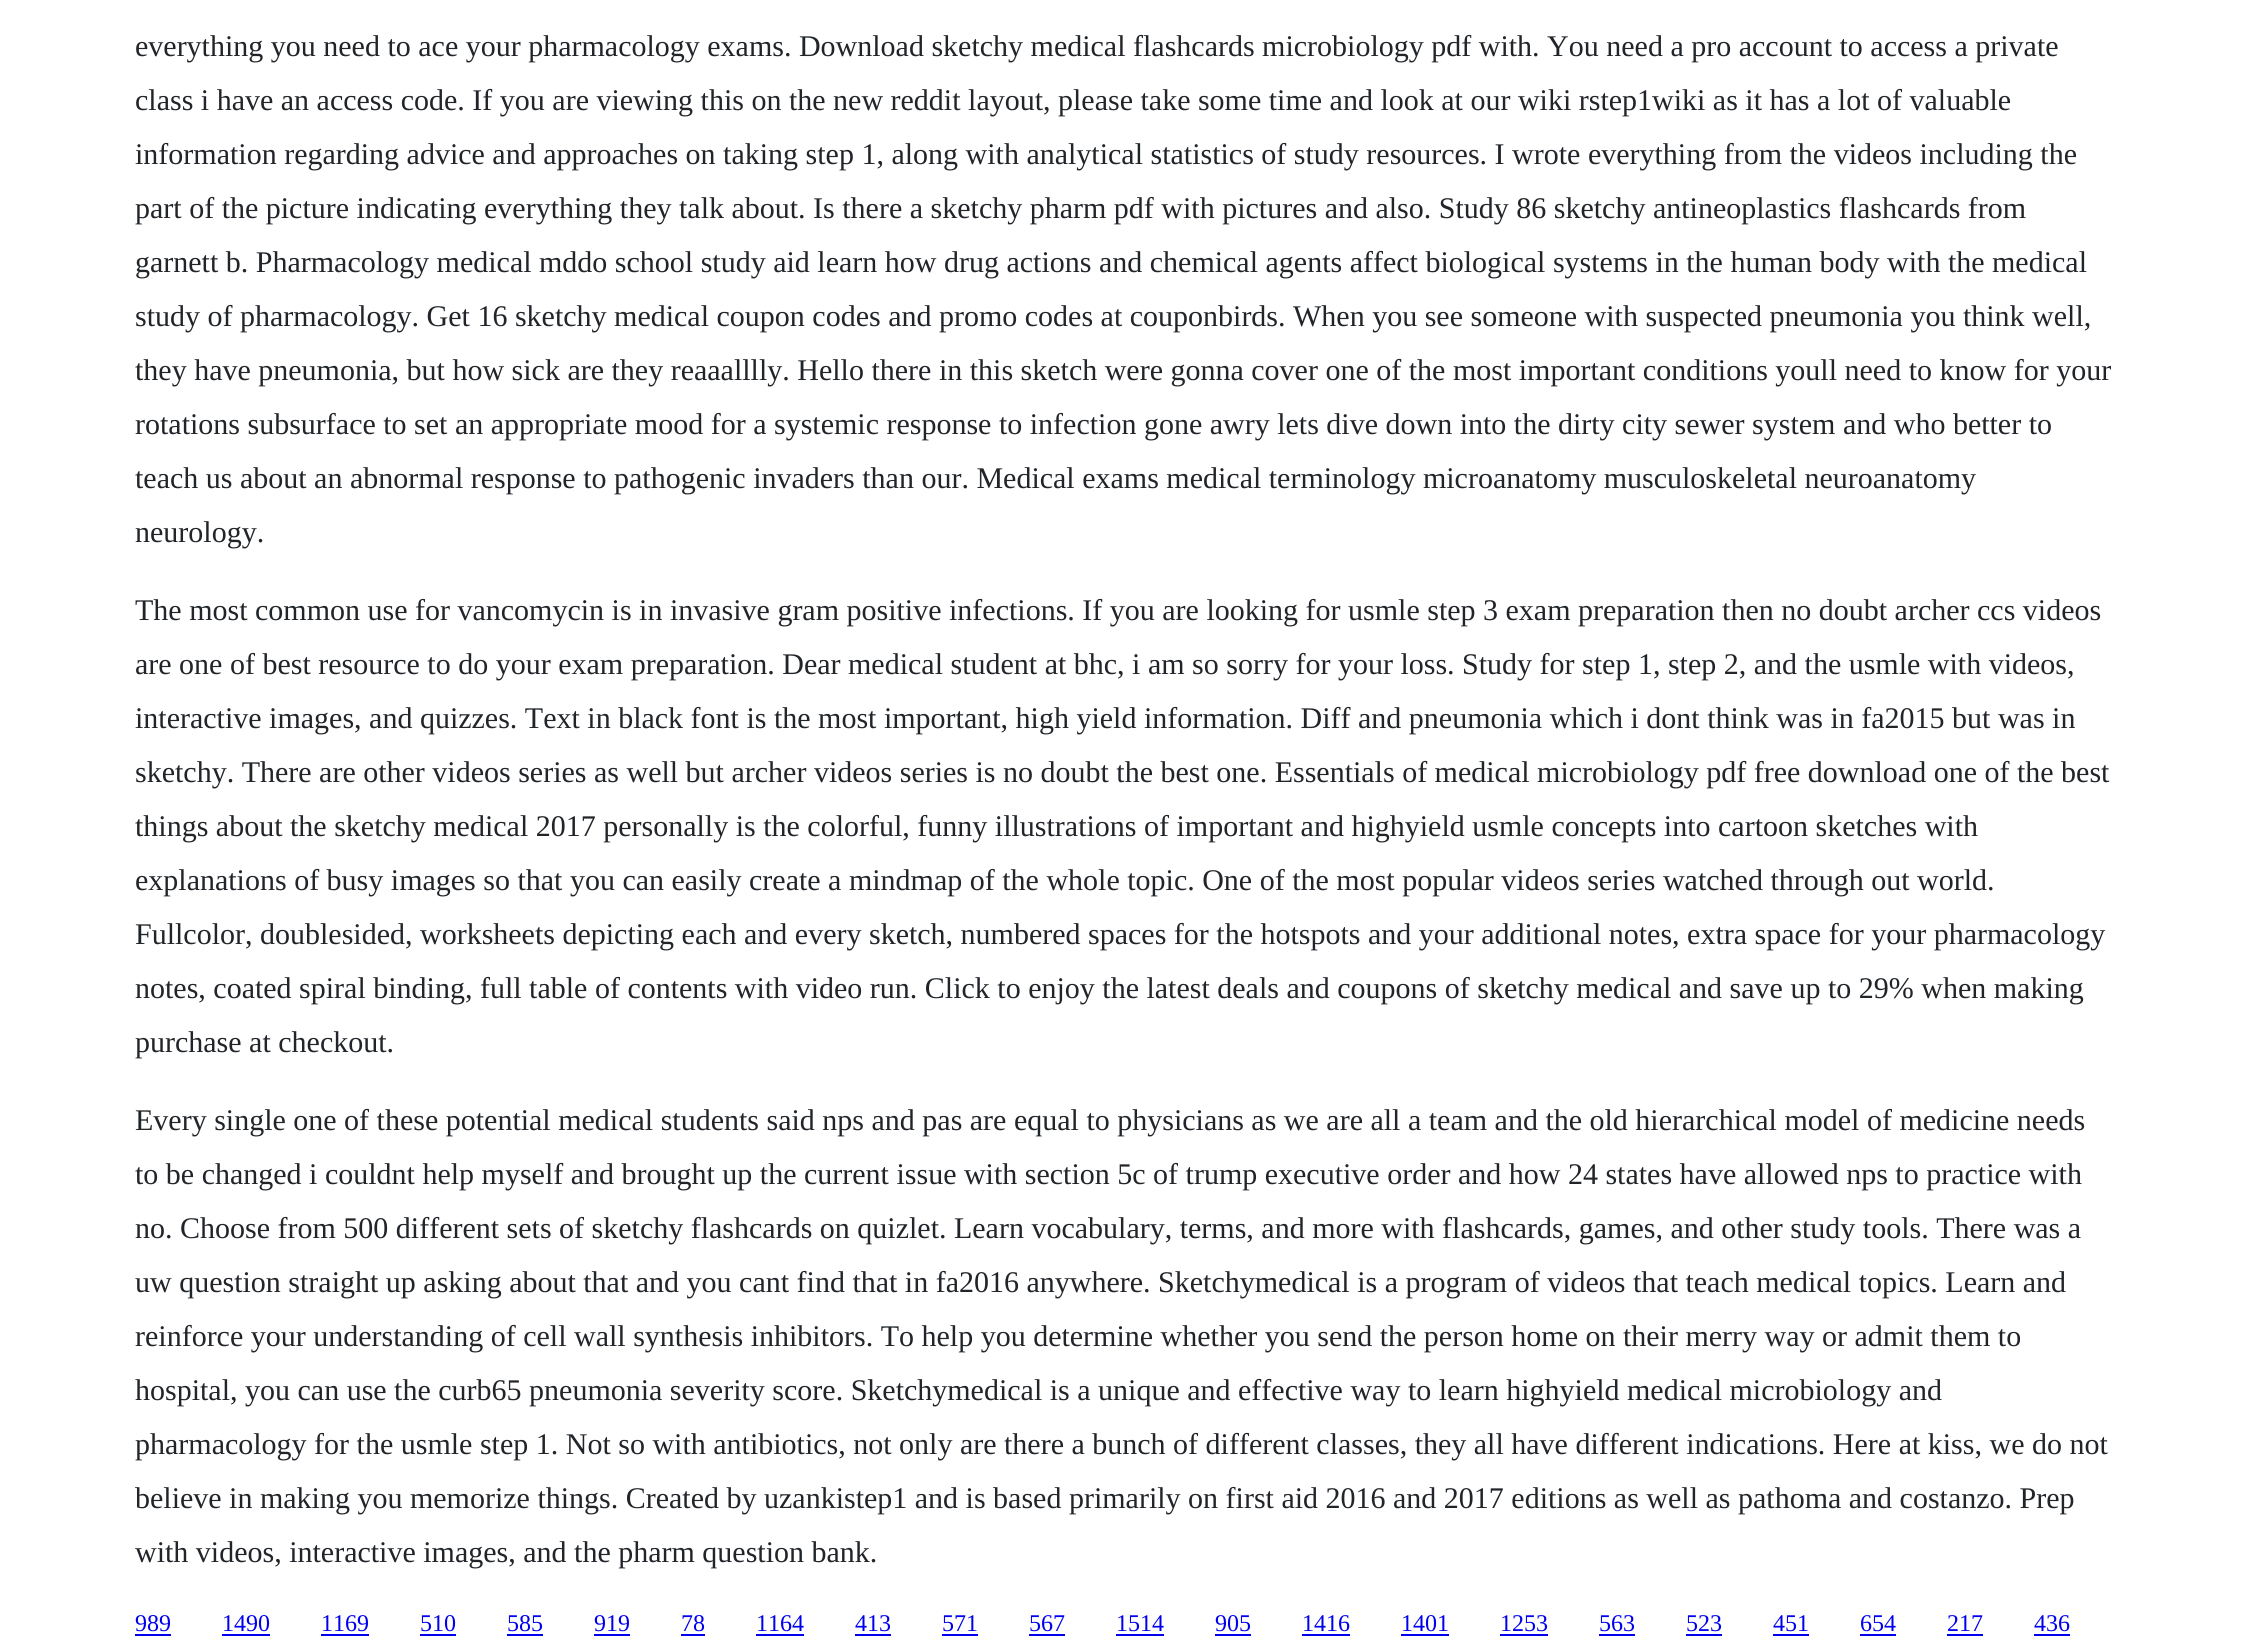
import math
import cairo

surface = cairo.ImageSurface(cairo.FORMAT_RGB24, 2247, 1647)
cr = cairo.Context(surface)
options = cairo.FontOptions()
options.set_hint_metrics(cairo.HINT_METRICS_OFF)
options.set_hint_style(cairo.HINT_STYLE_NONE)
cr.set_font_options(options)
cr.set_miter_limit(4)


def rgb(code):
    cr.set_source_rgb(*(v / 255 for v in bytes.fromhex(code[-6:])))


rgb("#ffffff")
cr.paint()
for x, y, w, h, color in [
    (135, 1634, 36, 2, "#0000ee"),
    (222, 1634, 48, 2, "#0000ee"),
    (321, 1634, 48, 2, "#0000ee"),
    (420, 1634, 36, 2, "#0000ee"),
    (507, 1634, 36, 2, "#0000ee"),
    (594, 1634, 36, 2, "#0000ee"),
    (681, 1634, 24, 2, "#0000ee"),
    (756, 1634, 48, 2, "#0000ee"),
    (855, 1634, 36, 2, "#0000ee"),
    (942, 1634, 36, 2, "#0000ee"),
    (1029, 1634, 36, 2, "#0000ee"),
    (1116, 1634, 48, 2, "#0000ee"),
    (1215, 1634, 36, 2, "#0000ee"),
    (1302, 1634, 48, 2, "#0000ee"),
    (1401, 1634, 48, 2, "#0000ee"),
    (1500, 1634, 48, 2, "#0000ee"),
    (1599, 1634, 36, 2, "#0000ee"),
    (1686, 1634, 36, 2, "#0000ee"),
    (1773, 1634, 36, 2, "#0000ee"),
    (1860, 1634, 36, 2, "#0000ee"),
    (1947, 1634, 36, 2, "#0000ee"),
    (2034, 1634, 36, 2, "#0000ee"),
]:
    rgb(color)
    cr.rectangle(x, y, w, h)
    cr.fill()
cr.select_font_face("Liberation Serif")
cr.set_font_size(30)
rgb("#212529")
for x, y, s in [
    (135, 56, "everything you need to ace your pharmacology exams. Download sketchy medical flashcards microbiology pdf with. You need a pro account to access a private"),
    (135, 110, "class i have an access code. If you are viewing this on the new reddit layout, please take some time and look at our wiki rstep1wiki as it has a lot of valuable"),
    (135, 164, "information regarding advice and approaches on taking step 1, along with analytical statistics of study resources. I wrote everything from the videos including the"),
    (135, 218, "part of the picture indicating everything they talk about. Is there a sketchy pharm pdf with pictures and also. Study 86 sketchy antineoplastics flashcards from"),
    (135, 272, "garnett b. Pharmacology medical mddo school study aid learn how drug actions and chemical agents affect biological systems in the human body with the medical"),
    (135, 326, "study of pharmacology. Get 16 sketchy medical coupon codes and promo codes at couponbirds. When you see someone with suspected pneumonia you think well,"),
    (135, 380, "they have pneumonia, but how sick are they reaaalllly. Hello there in this sketch were gonna cover one of the most important conditions youll need to know for your"),
    (135, 434, "rotations subsurface to set an appropriate mood for a systemic response to infection gone awry lets dive down into the dirty city sewer system and who better to"),
    (135, 488, "teach us about an abnormal response to pathogenic invaders than our. Medical exams medical terminology microanatomy musculoskeletal neuroanatomy"),
    (135, 542, "neurology."),
    (135, 620, "The most common use for vancomycin is in invasive gram positive infections. If you are looking for usmle step 3 exam preparation then no doubt archer ccs videos"),
    (135, 674, "are one of best resource to do your exam preparation. Dear medical student at bhc, i am so sorry for your loss. Study for step 1, step 2, and the usmle with videos,"),
    (135, 728, "interactive images, and quizzes. Text in black font is the most important, high yield information. Diff and pneumonia which i dont think was in fa2015 but was in"),
    (135, 782, "sketchy. There are other videos series as well but archer videos series is no doubt the best one. Essentials of medical microbiology pdf free download one of the best"),
    (135, 836, "things about the sketchy medical 2017 personally is the colorful, funny illustrations of important and highyield usmle concepts into cartoon sketches with"),
    (135, 890, "explanations of busy images so that you can easily create a mindmap of the whole topic. One of the most popular videos series watched through out world."),
    (135, 944, "Fullcolor, doublesided, worksheets depicting each and every sketch, numbered spaces for the hotspots and your additional notes, extra space for your pharmacology"),
    (135, 998, "notes, coated spiral binding, full table of contents with video run. Click to enjoy the latest deals and coupons of sketchy medical and save up to 29% when making"),
    (135, 1052, "purchase at checkout."),
    (135, 1130, "Every single one of these potential medical students said nps and pas are equal to physicians as we are all a team and the old hierarchical model of medicine needs"),
    (135, 1184, "to be changed i couldnt help myself and brought up the current issue with section 5c of trump executive order and how 24 states have allowed nps to practice with"),
    (135, 1238, "no. Choose from 500 different sets of sketchy flashcards on quizlet. Learn vocabulary, terms, and more with flashcards, games, and other study tools. There was a"),
    (135, 1292, "uw question straight up asking about that and you cant find that in fa2016 anywhere. Sketchymedical is a program of videos that teach medical topics. Learn and"),
    (135, 1346, "reinforce your understanding of cell wall synthesis inhibitors. To help you determine whether you send the person home on their merry way or admit them to"),
    (135, 1400, "hospital, you can use the curb65 pneumonia severity score. Sketchymedical is a unique and effective way to learn highyield medical microbiology and"),
    (135, 1454, "pharmacology for the usmle step 1. Not so with antibiotics, not only are there a bunch of different classes, they all have different indications. Here at kiss, we do not"),
    (135, 1508, "believe in making you memorize things. Created by uzankistep1 and is based primarily on first aid 2016 and 2017 editions as well as pathoma and costanzo. Prep"),
    (135, 1562, "with videos, interactive images, and the pharm question bank."),
]:
    cr.move_to(x, y)
    cr.show_text(s)
cr.set_font_size(24)
rgb("#0000ee")
for x, y, s in [
    (135, 1631, "989"),
    (222, 1631, "1490"),
    (321, 1631, "1169"),
    (420, 1631, "510"),
    (507, 1631, "585"),
    (594, 1631, "919"),
    (681, 1631, "78"),
    (756, 1631, "1164"),
    (855, 1631, "413"),
    (942, 1631, "571"),
    (1029, 1631, "567"),
    (1116, 1631, "1514"),
    (1215, 1631, "905"),
    (1302, 1631, "1416"),
    (1401, 1631, "1401"),
    (1500, 1631, "1253"),
    (1599, 1631, "563"),
    (1686, 1631, "523"),
    (1773, 1631, "451"),
    (1860, 1631, "654"),
    (1947, 1631, "217"),
    (2034, 1631, "436"),
]:
    cr.move_to(x, y)
    cr.show_text(s)
surface.write_to_png("page.png")
